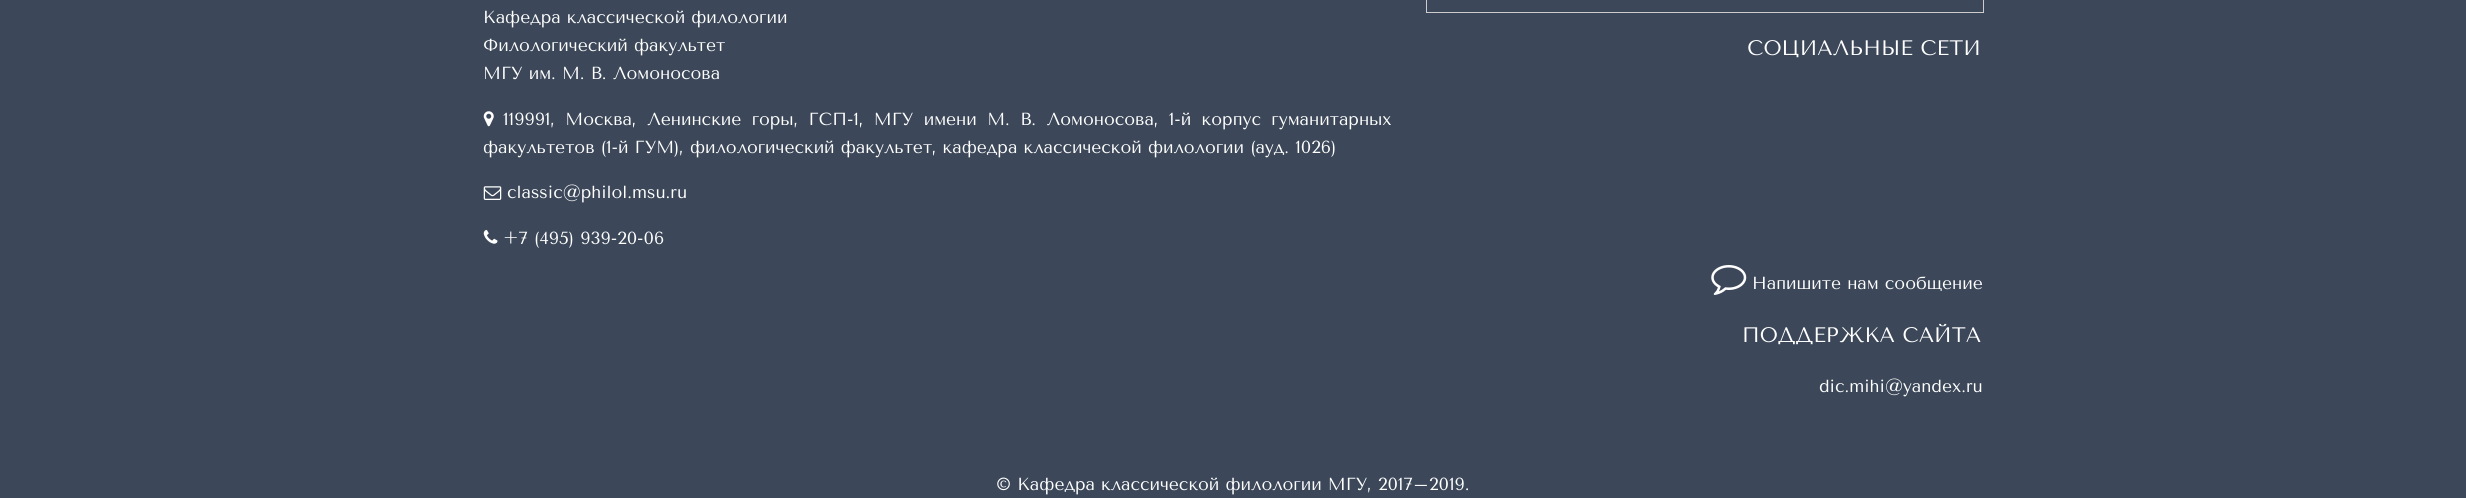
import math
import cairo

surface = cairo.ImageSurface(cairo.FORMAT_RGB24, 2466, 498)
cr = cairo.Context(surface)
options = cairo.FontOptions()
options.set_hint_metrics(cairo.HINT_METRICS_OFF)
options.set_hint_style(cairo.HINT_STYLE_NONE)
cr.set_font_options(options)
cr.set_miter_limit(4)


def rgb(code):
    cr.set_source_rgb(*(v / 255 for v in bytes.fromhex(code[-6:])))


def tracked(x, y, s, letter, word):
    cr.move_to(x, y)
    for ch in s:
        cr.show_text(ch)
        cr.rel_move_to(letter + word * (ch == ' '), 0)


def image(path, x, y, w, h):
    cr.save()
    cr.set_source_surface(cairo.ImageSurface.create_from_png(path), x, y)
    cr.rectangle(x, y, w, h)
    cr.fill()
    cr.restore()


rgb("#3c4859")
cr.paint()
image("img/1.png", 483, 111, 11, 16)
image("img/2.png", 483, 186, 19, 14)
image("img/3.png", 483, 230, 15, 14)
cr.rectangle(1426.5, -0.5, 557, 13)
rgb("#cdcdcd")
cr.set_line_width(1)
cr.stroke()
image("img/4.png", 1711, 265, 36, 30)
cr.select_font_face("Tenor Sans")
cr.set_font_size(17.5)
rgb("#ffffff")
for x, y, s in [
    (483, 23, "Кафедра классической филологии"),
    (483, 51, "Филологический факультет"),
    (483, 79, "МГУ им. М. В. Ломоносова"),
]:
    cr.move_to(x, y)
    cr.show_text(s)
tracked(503, 125, "119991, Москва, Ленинские горы, ГСП-1, МГУ имени М. В. Ломоносова, 1-й корпус гуманитарных", 0, 4.25)
for x, y, s in [
    (483, 153, "факультетов (1-й ГУМ), филологический факультет, кафедра классической филологии (ауд. 1026)"),
    (507, 198, "classic@philol.msu.ru"),
    (503, 244, "+7 (495) 939-20-06"),
]:
    cr.move_to(x, y)
    cr.show_text(s)
cr.set_font_size(21)
cr.move_to(1747, 55)
cr.show_text("СОЦИАЛЬНЫЕ СЕТИ")
cr.set_font_size(17.5)
cr.move_to(1752, 289)
cr.show_text("Напишите нам сообщение")
cr.set_font_size(21)
cr.move_to(1742, 342)
cr.show_text("ПОДДЕРЖКА САЙТА")
cr.set_font_size(17.5)
cr.move_to(1819, 392)
cr.show_text("dic.mihi@yandex.ru")
cr.move_to(996, 490)
cr.show_text("© Кафедра классической филологии МГУ, 2017–2019.")
surface.write_to_png("page.png")
